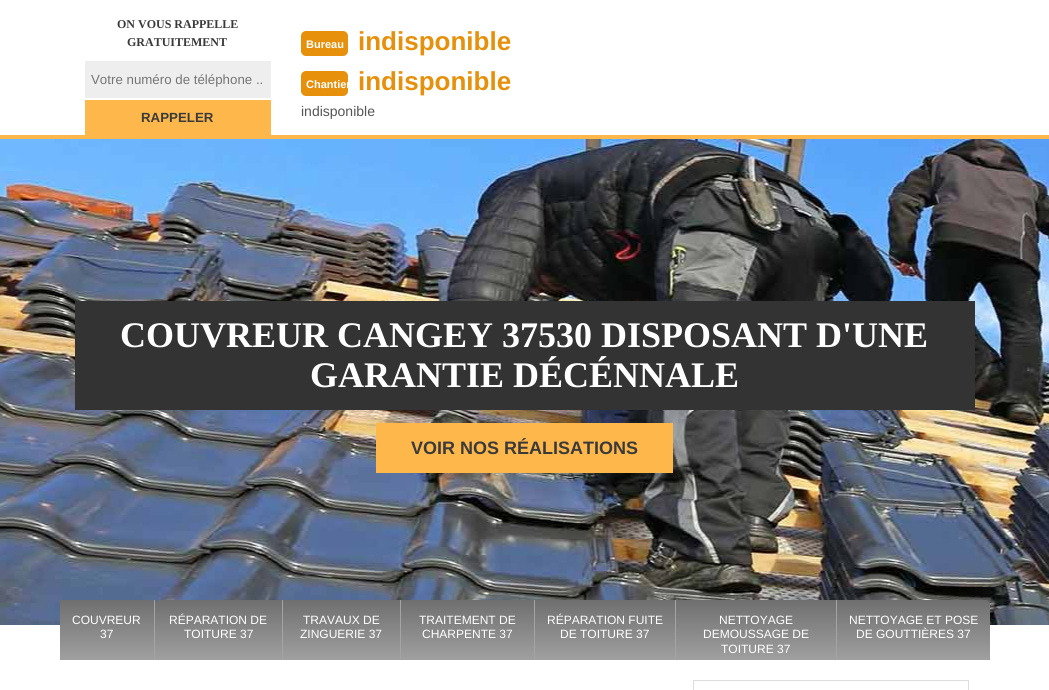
import math
import cairo

surface = cairo.ImageSurface(cairo.FORMAT_RGB24, 1049, 690)
cr = cairo.Context(surface)
options = cairo.FontOptions()
options.set_hint_metrics(cairo.HINT_METRICS_OFF)
options.set_hint_style(cairo.HINT_STYLE_NONE)
cr.set_font_options(options)
cr.set_miter_limit(4)


def rgb(code):
    cr.set_source_rgb(*(v / 255 for v in bytes.fromhex(code[-6:])))


def rrect(x, y, w, h, r):
    cr.new_sub_path()
    for i, (u, v) in enumerate([(x + w - r, y + h - r), (x + r, y + h - r), (x + r, y + r), (x + w - r, y + r)]):
        cr.arc(u, v, r, i * math.pi / 2, (i + 1) * math.pi / 2)
    cr.close_path()


def image(path, x, y, w, h):
    cr.save()
    cr.set_source_surface(cairo.ImageSurface.create_from_png(path), x, y)
    cr.rectangle(x, y, w, h)
    cr.fill()
    cr.restore()


rgb("#ffffff")
cr.paint()
rgb("#eeeeee")
cr.rectangle(85, 61, 186, 37)
cr.fill()
rgb("#feb74b")
cr.rectangle(85, 100, 186, 35)
cr.fill()
rgb("#e7900c")
rrect(301, 31, 47, 25, 5)
cr.fill()
rrect(301, 71, 47, 25, 5)
cr.fill()
rgb("#feb74b")
cr.rectangle(0, 135, 1049, 4)
cr.fill()
image("img/1.png", 0, 139, 1049, 486)
rgb("#333333")
cr.rectangle(75, 301, 900, 109)
cr.fill()
rgb("#feb74b")
cr.rectangle(376, 423, 297, 50)
cr.fill()
gradient = cairo.LinearGradient(107, 600, 107, 665)
gradient.add_color_stop_rgba(0, 0.439, 0.435, 0.435, 1)
gradient.add_color_stop_rgba(1, 0.647, 0.643, 0.643, 1)
cr.set_source(gradient)
cr.rectangle(60, 600, 94, 60)
cr.fill()
rgb("#a5a4a4")
cr.rectangle(154, 600, 1, 65)
cr.fill()
gradient = cairo.LinearGradient(219, 600, 219, 665)
gradient.add_color_stop_rgba(0, 0.439, 0.435, 0.435, 1)
gradient.add_color_stop_rgba(1, 0.647, 0.643, 0.643, 1)
cr.set_source(gradient)
cr.new_path()
cr.move_to(160, 600)
cr.line_to(283, 600)
cr.line_to(283, 665)
cr.line_to(160, 665)
cr.curve_to(157, 665, 155, 663, 155, 660)
cr.line_to(155, 605)
cr.curve_to(155, 602, 157, 600, 160, 600)
cr.close_path()
cr.fill()
rgb("#a5a4a4")
cr.rectangle(282, 600, 1, 65)
cr.fill()
gradient = cairo.LinearGradient(342, 600, 342, 665)
gradient.add_color_stop_rgba(0, 0.439, 0.435, 0.435, 1)
gradient.add_color_stop_rgba(1, 0.647, 0.643, 0.643, 1)
cr.set_source(gradient)
cr.rectangle(283, 600, 117, 60)
cr.fill()
rgb("#a5a4a4")
cr.rectangle(400, 600, 1, 65)
cr.fill()
gradient = cairo.LinearGradient(468, 600, 468, 665)
gradient.add_color_stop_rgba(0, 0.439, 0.435, 0.435, 1)
gradient.add_color_stop_rgba(1, 0.647, 0.643, 0.643, 1)
cr.set_source(gradient)
cr.rectangle(401, 600, 133, 60)
cr.fill()
rgb("#a5a4a4")
cr.rectangle(534, 600, 1, 65)
cr.fill()
gradient = cairo.LinearGradient(605, 600, 605, 665)
gradient.add_color_stop_rgba(0, 0.439, 0.435, 0.435, 1)
gradient.add_color_stop_rgba(1, 0.647, 0.643, 0.643, 1)
cr.set_source(gradient)
cr.rectangle(535, 600, 140, 60)
cr.fill()
rgb("#a5a4a4")
cr.rectangle(675, 600, 1, 65)
cr.fill()
gradient = cairo.LinearGradient(756, 600, 756, 665)
gradient.add_color_stop_rgba(0, 0.439, 0.435, 0.435, 1)
gradient.add_color_stop_rgba(1, 0.647, 0.643, 0.643, 1)
cr.set_source(gradient)
cr.rectangle(676, 600, 160, 60)
cr.fill()
rgb("#a5a4a4")
cr.rectangle(836, 600, 1, 65)
cr.fill()
gradient = cairo.LinearGradient(914, 600, 914, 665)
gradient.add_color_stop_rgba(0, 0.439, 0.435, 0.435, 1)
gradient.add_color_stop_rgba(1, 0.647, 0.643, 0.643, 1)
cr.set_source(gradient)
cr.new_path()
cr.move_to(837, 600)
cr.line_to(985, 600)
cr.curve_to(988, 600, 990, 602, 990, 605)
cr.line_to(990, 660)
cr.curve_to(990, 663, 988, 665, 985, 665)
cr.line_to(837, 665)
cr.close_path()
cr.fill()
for x, y, w, h, color in [
    (154, 660, 836, 5, "#ffffff"),
    (693, 680, 276, 1, "#dddddd"),
    (968, 680, 1, 10, "#dddddd"),
    (693, 680, 1, 10, "#dddddd"),
]:
    rgb(color)
    cr.rectangle(x, y, w, h)
    cr.fill()
cr.select_font_face("Liberation Serif", cairo.FONT_SLANT_NORMAL, cairo.FONT_WEIGHT_BOLD)
cr.set_font_size(12)
rgb("#3a3a3a")
cr.move_to(117, 28)
cr.show_text("ON VOUS RAPPELLE")
cr.move_to(127, 46)
cr.show_text("GRATUITEMENT")
cr.select_font_face("Liberation Sans")
cr.set_font_size(13.3)
rgb("#757575")
cr.move_to(91, 84)
cr.show_text("Votre numéro de téléphone ..")
cr.select_font_face("Liberation Sans", cairo.FONT_SLANT_NORMAL, cairo.FONT_WEIGHT_BOLD)
rgb("#3a3a3a")
cr.move_to(141, 122)
cr.show_text("RAPPELER")
cr.set_font_size(11)
rgb("#ffffff")
cr.move_to(306, 48)
cr.show_text("Bureau")
cr.set_font_size(26)
rgb("#e7900c")
cr.move_to(358, 50)
cr.show_text("indisponible")
cr.set_font_size(11)
rgb("#ffffff")
cr.move_to(306, 88)
cr.show_text("Chantier")
cr.set_font_size(26)
rgb("#e7900c")
cr.move_to(358, 90)
cr.show_text("indisponible")
cr.select_font_face("Liberation Sans")
cr.set_font_size(14)
rgb("#555555")
cr.move_to(301, 116)
cr.show_text("indisponible")
cr.select_font_face("Liberation Serif", cairo.FONT_SLANT_NORMAL, cairo.FONT_WEIGHT_BOLD)
cr.set_font_size(36)
rgb("#ffffff")
cr.move_to(120, 347)
cr.show_text("COUVREUR CANGEY 37530 DISPOSANT D'UNE")
cr.move_to(310, 387)
cr.show_text("GARANTIE DÉCÉNNALE")
cr.select_font_face("Liberation Sans", cairo.FONT_SLANT_NORMAL, cairo.FONT_WEIGHT_BOLD)
cr.set_font_size(18)
rgb("#3a3a3a")
cr.move_to(411, 454)
cr.show_text("VOIR NOS RÉALISATIONS")
cr.select_font_face("Liberation Sans")
cr.set_font_size(12)
rgb("#ffffff")
for x, y, s in [
    (72, 624, "COUVREUR"),
    (100, 638, "37"),
    (169, 624, "RÉPARATION DE"),
    (184, 638, "TOITURE 37"),
    (303, 624, "TRAVAUX DE"),
    (300, 638, "ZINGUERIE 37"),
    (419, 624, "TRAITEMENT DE"),
    (422, 638, "CHARPENTE 37"),
    (547, 624, "RÉPARATION FUITE"),
    (560, 638, "DE TOITURE 37"),
    (719, 624, "NETTOYAGE"),
    (703, 638, "DEMOUSSAGE DE"),
    (721, 653, "TOITURE 37"),
    (849, 624, "NETTOYAGE ET POSE"),
    (856, 638, "DE GOUTTIÈRES 37"),
]:
    cr.move_to(x, y)
    cr.show_text(s)
surface.write_to_png("page.png")
